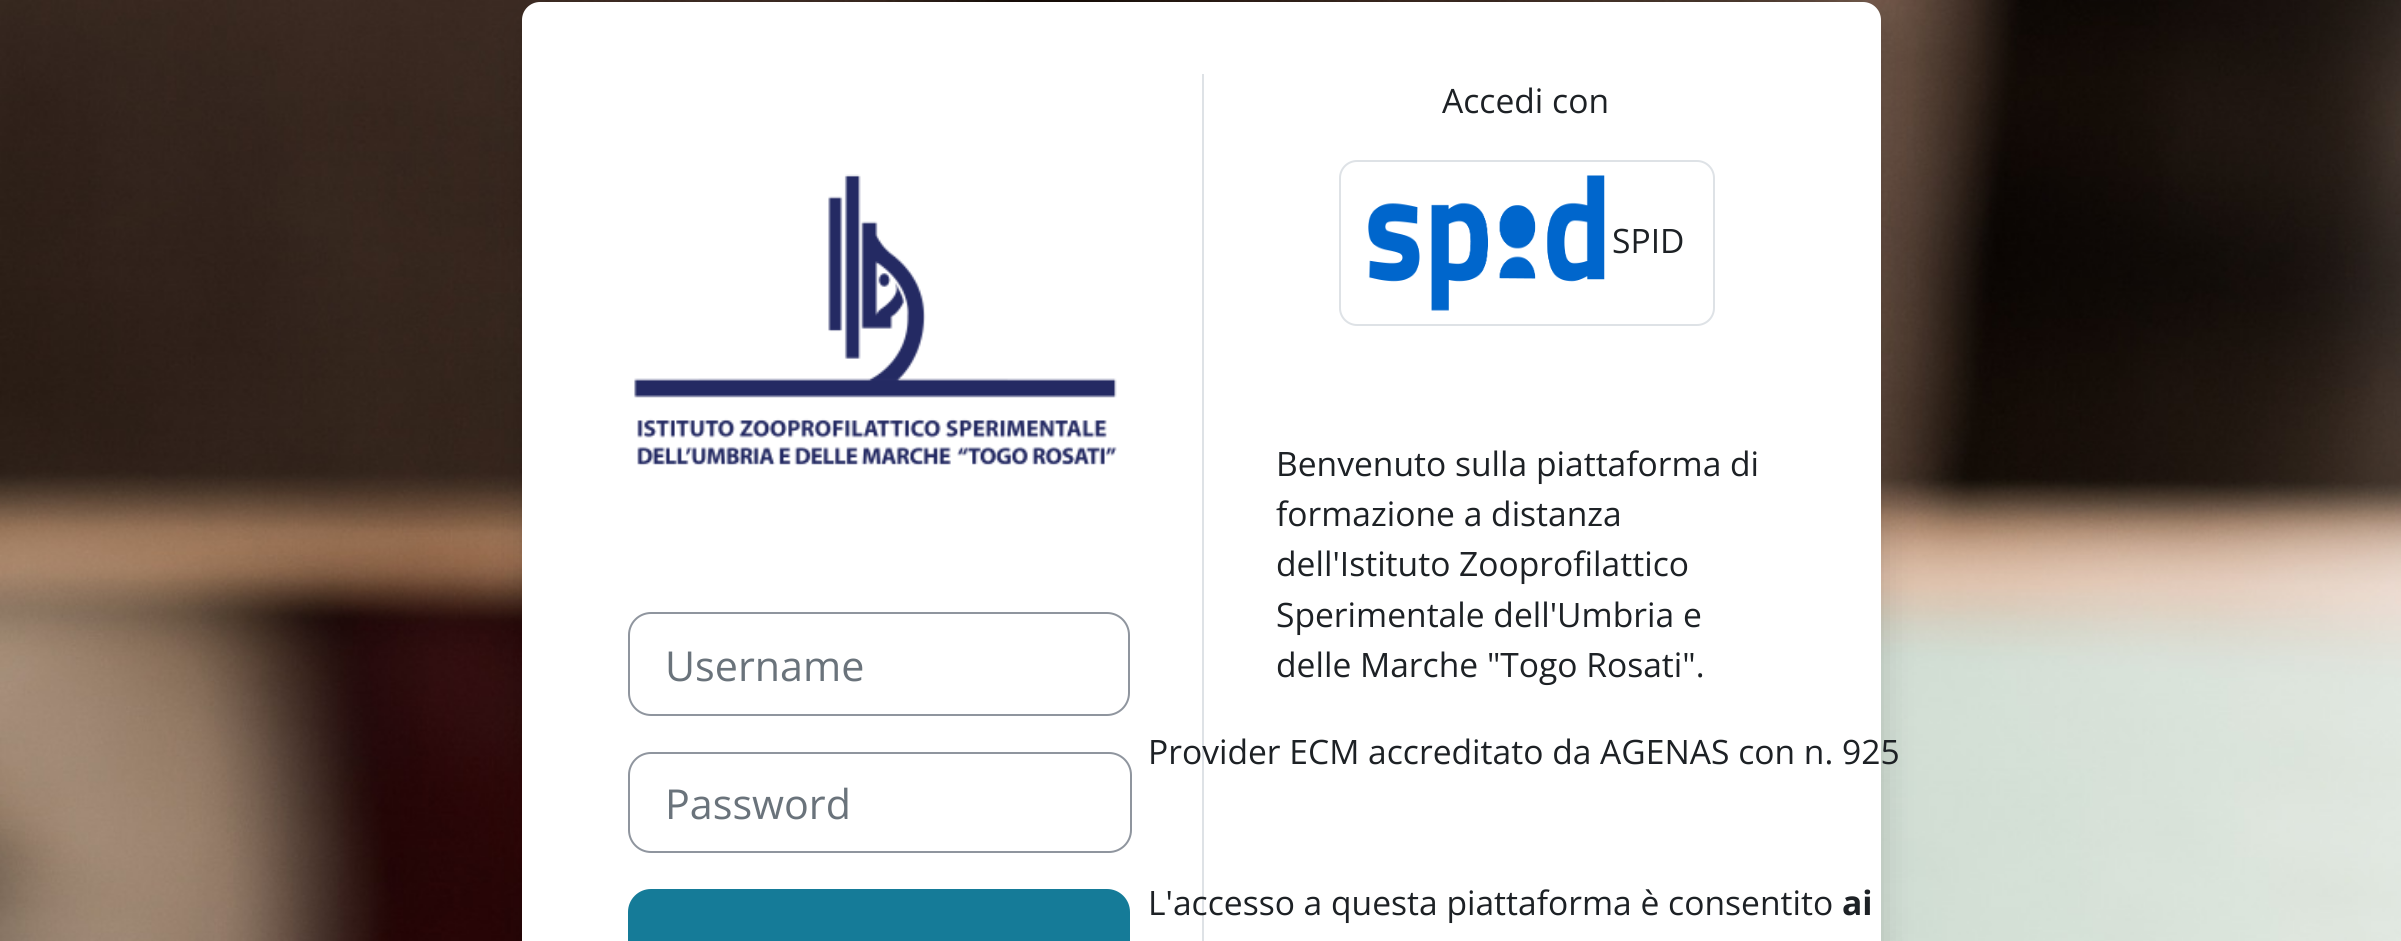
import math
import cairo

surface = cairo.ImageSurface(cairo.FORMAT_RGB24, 2401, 941)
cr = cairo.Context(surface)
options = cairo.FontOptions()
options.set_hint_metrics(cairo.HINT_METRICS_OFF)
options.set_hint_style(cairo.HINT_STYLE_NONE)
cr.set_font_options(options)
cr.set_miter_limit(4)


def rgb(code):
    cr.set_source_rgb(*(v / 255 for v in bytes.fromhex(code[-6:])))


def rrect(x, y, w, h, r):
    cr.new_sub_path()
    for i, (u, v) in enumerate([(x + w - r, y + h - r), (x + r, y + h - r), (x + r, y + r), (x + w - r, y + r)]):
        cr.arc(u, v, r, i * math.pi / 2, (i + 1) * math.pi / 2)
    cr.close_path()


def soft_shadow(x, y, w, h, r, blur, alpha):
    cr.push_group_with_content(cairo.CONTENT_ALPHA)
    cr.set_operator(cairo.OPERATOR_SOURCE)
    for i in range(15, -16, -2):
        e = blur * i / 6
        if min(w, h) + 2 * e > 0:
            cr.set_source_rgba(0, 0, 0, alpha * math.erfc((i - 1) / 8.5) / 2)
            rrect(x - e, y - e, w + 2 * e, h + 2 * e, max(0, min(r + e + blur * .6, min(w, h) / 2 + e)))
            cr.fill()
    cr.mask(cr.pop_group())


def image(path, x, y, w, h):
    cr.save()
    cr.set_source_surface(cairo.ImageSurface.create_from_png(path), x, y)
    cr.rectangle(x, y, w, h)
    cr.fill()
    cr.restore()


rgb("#ffffff")
cr.paint()
image("img/1.png", 0, 0, 2401, 941)
rgb("#000000")
soft_shadow(522, 20, 1359, 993, 18, 18, 0.15)
rgb("#ffffff")
rrect(522, 2, 1359, 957, 18)
cr.fill()
image("img/2.png", 634, 174, 483, 292)
rrect(629, 613, 500, 102, 22)
rgb("#8f959e")
cr.stroke()
rrect(629, 753, 502, 99, 22)
cr.stroke()
rgb("#157b98")
rrect(629, 890, 500, 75, 22)
cr.fill_preserve()
cr.stroke()
rgb("#dee2e6")
cr.rectangle(1202, 74, 2, 867)
cr.fill()
rrect(1340, 161, 374, 164, 17)
cr.stroke()
image("img/3.png", 1368, 175, 237, 136)
cr.select_font_face("Open Sans")
cr.set_font_size(41.25)
rgb("#6a737b")
cr.move_to(665, 681)
cr.show_text("Username")
cr.move_to(665, 819)
cr.show_text("Password")
cr.set_font_size(33.6)
rgb("#1d2125")
for x, y, s in [
    (1442, 113, "Accedi con"),
    (1612, 253, "SPID"),
    (1276, 476, "Benvenuto sulla piattaforma di"),
    (1276, 526, "formazione a distanza"),
    (1276, 576, "dell'Istituto Zooprofilattico"),
    (1276, 627, "Sperimentale dell'Umbria e"),
    (1276, 677, "delle Marche \"Togo Rosati\"."),
    (1148, 764, "Provider ECM accreditato da AGENAS con n. 925"),
    (1148, 915, "L'accesso a questa piattaforma è consentito"),
]:
    cr.move_to(x, y)
    cr.show_text(s)
cr.select_font_face("Open Sans", cairo.FONT_SLANT_NORMAL, cairo.FONT_WEIGHT_BOLD)
cr.move_to(1842, 915)
cr.show_text("ai")
surface.write_to_png("page.png")
